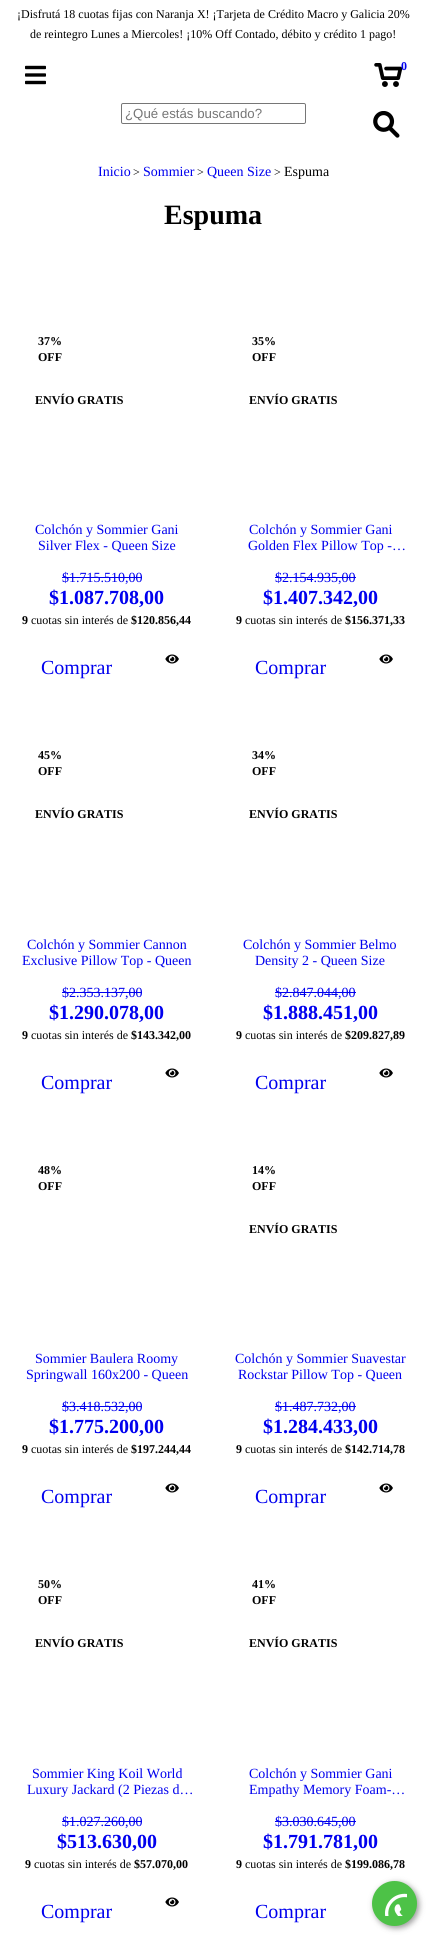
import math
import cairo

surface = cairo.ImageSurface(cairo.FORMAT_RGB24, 427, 1936)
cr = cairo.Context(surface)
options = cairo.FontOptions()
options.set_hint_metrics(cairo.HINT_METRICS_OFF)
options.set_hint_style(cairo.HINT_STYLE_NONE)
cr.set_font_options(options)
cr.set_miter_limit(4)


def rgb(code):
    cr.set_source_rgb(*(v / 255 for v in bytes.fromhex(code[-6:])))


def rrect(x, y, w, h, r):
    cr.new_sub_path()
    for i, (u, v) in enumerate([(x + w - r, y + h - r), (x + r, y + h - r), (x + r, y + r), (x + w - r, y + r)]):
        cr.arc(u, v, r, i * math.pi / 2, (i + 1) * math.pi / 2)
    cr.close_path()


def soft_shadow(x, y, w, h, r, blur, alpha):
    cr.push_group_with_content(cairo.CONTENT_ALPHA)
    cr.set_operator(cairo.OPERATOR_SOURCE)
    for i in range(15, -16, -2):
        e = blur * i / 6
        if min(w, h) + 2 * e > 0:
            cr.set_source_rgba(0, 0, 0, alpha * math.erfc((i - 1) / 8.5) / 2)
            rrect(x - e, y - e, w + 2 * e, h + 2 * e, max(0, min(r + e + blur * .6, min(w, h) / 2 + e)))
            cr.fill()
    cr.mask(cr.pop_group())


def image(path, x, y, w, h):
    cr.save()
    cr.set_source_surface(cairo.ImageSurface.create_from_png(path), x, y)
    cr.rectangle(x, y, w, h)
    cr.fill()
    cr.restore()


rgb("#ffffff")
cr.paint()
image("img/1.png", 25, 65, 21, 20)
image("img/2.png", 374, 63, 29, 24)
rrect(121.5, 103.5, 184, 20, 1.5)
rgb("#767676")
cr.set_line_width(1)
cr.stroke()
image("img/3.png", 373, 111, 27, 27)
rgb("#0000ee")
cr.rectangle(62, 577, 80, 1)
cr.fill()
image("img/4.png", 165, 654, 14, 10)
cr.rectangle(275, 577, 81, 1)
cr.fill()
image("img/4.png", 379, 654, 14, 10)
cr.rectangle(62, 992, 80, 1)
cr.fill()
image("img/4.png", 165, 1068, 14, 10)
cr.rectangle(275, 992, 81, 1)
cr.fill()
image("img/4.png", 379, 1068, 14, 10)
cr.rectangle(62, 1406, 80, 1)
cr.fill()
image("img/4.png", 165, 1483, 14, 10)
cr.rectangle(275, 1406, 81, 1)
cr.fill()
image("img/4.png", 379, 1483, 14, 10)
cr.rectangle(62, 1821, 80, 1)
cr.fill()
image("img/4.png", 165, 1897, 14, 10)
cr.rectangle(275, 1821, 81, 1)
cr.fill()
rgb("#000000")
soft_shadow(374, 1883, 45, 45, 22.5, 3, 0.4)
rgb("#4dc247")
cr.arc(394.5, 1903.5, 22.5, 0, 2 * math.pi)
cr.fill()
image("img/5.png", 385, 1893, 22, 23)
cr.select_font_face("Liberation Serif")
cr.set_font_size(12)
rgb("#000000")
cr.move_to(17, 18)
cr.show_text("¡Disfrutá 18 cuotas fijas con Naranja X! ¡Tarjeta de Crédito Macro y Galicia 20%")
cr.move_to(30, 38)
cr.show_text("de reintegro Lunes a Miercoles! ¡10% Off Contado, débito y crédito 1 pago!")
cr.select_font_face("Liberation Serif", cairo.FONT_SLANT_NORMAL, cairo.FONT_WEIGHT_BOLD)
rgb("#0000ee")
cr.move_to(401, 70)
cr.show_text("0")
cr.select_font_face("Liberation Sans")
cr.set_font_size(13.25)
rgb("#757575")
cr.move_to(125, 118)
cr.show_text("¿Qué estás buscando?")
cr.select_font_face("Liberation Serif")
cr.set_font_size(14)
rgb("#0000ee")
cr.move_to(98, 176)
cr.show_text("Inicio")
cr.set_font_size(12)
rgb("#000000")
cr.move_to(133, 176)
cr.show_text(">")
cr.set_font_size(14)
rgb("#0000ee")
cr.move_to(143, 176)
cr.show_text("Sommier")
cr.set_font_size(12)
rgb("#000000")
cr.move_to(197, 176)
cr.show_text(">")
cr.set_font_size(14)
rgb("#0000ee")
cr.move_to(207, 176)
cr.show_text("Queen Size")
cr.set_font_size(12)
rgb("#000000")
cr.move_to(274, 176)
cr.show_text(">")
cr.set_font_size(14)
cr.move_to(284, 176)
cr.show_text("Espuma")
cr.select_font_face("Liberation Serif", cairo.FONT_SLANT_NORMAL, cairo.FONT_WEIGHT_BOLD)
cr.set_font_size(28)
cr.move_to(164, 224)
cr.show_text("Espuma")
cr.set_font_size(12)
for x, y, s in [
    (38, 345, "37%"),
    (38, 361, "OFF"),
    (35, 404, "ENVÍO GRATIS"),
]:
    cr.move_to(x, y)
    cr.show_text(s)
cr.select_font_face("Liberation Serif")
cr.set_font_size(14)
rgb("#0000ee")
for x, y, s in [
    (35, 534, "Colchón y Sommier Gani"),
    (38, 550, "Silver Flex - Queen Size"),
    (62, 582, "$1.715.510,00"),
]:
    cr.move_to(x, y)
    cr.show_text(s)
cr.select_font_face("Liberation Serif", cairo.FONT_SLANT_NORMAL, cairo.FONT_WEIGHT_BOLD)
cr.set_font_size(20)
cr.move_to(49, 604)
cr.show_text("$1.087.708,00")
cr.set_font_size(12)
rgb("#000000")
cr.move_to(22, 624)
cr.show_text("9")
cr.select_font_face("Liberation Serif")
cr.move_to(31, 624)
cr.show_text("cuotas sin interés de")
cr.select_font_face("Liberation Serif", cairo.FONT_SLANT_NORMAL, cairo.FONT_WEIGHT_BOLD)
cr.move_to(131, 624)
cr.show_text("$120.856,44")
cr.select_font_face("Liberation Serif")
cr.set_font_size(20)
rgb("#0000ee")
cr.move_to(41, 674)
cr.show_text("Comprar")
cr.select_font_face("Liberation Serif", cairo.FONT_SLANT_NORMAL, cairo.FONT_WEIGHT_BOLD)
cr.set_font_size(12)
rgb("#000000")
for x, y, s in [
    (252, 345, "35%"),
    (252, 361, "OFF"),
    (249, 404, "ENVÍO GRATIS"),
]:
    cr.move_to(x, y)
    cr.show_text(s)
cr.select_font_face("Liberation Serif")
cr.set_font_size(14)
rgb("#0000ee")
for x, y, s in [
    (249, 534, "Colchón y Sommier Gani"),
    (248, 550, "Golden Flex Pillow Top -…"),
    (275, 582, "$2.154.935,00"),
]:
    cr.move_to(x, y)
    cr.show_text(s)
cr.select_font_face("Liberation Serif", cairo.FONT_SLANT_NORMAL, cairo.FONT_WEIGHT_BOLD)
cr.set_font_size(20)
cr.move_to(263, 604)
cr.show_text("$1.407.342,00")
cr.set_font_size(12)
rgb("#000000")
cr.move_to(236, 624)
cr.show_text("9")
cr.select_font_face("Liberation Serif")
cr.move_to(245, 624)
cr.show_text("cuotas sin interés de")
cr.select_font_face("Liberation Serif", cairo.FONT_SLANT_NORMAL, cairo.FONT_WEIGHT_BOLD)
cr.move_to(345, 624)
cr.show_text("$156.371,33")
cr.select_font_face("Liberation Serif")
cr.set_font_size(20)
rgb("#0000ee")
cr.move_to(255, 674)
cr.show_text("Comprar")
cr.select_font_face("Liberation Serif", cairo.FONT_SLANT_NORMAL, cairo.FONT_WEIGHT_BOLD)
cr.set_font_size(12)
rgb("#000000")
for x, y, s in [
    (38, 759, "45%"),
    (38, 775, "OFF"),
    (35, 818, "ENVÍO GRATIS"),
]:
    cr.move_to(x, y)
    cr.show_text(s)
cr.select_font_face("Liberation Serif")
cr.set_font_size(14)
rgb("#0000ee")
for x, y, s in [
    (27, 949, "Colchón y Sommier Cannon"),
    (22, 965, "Exclusive Pillow Top - Queen"),
    (62, 997, "$2.353.137,00"),
]:
    cr.move_to(x, y)
    cr.show_text(s)
cr.select_font_face("Liberation Serif", cairo.FONT_SLANT_NORMAL, cairo.FONT_WEIGHT_BOLD)
cr.set_font_size(20)
cr.move_to(49, 1019)
cr.show_text("$1.290.078,00")
cr.set_font_size(12)
rgb("#000000")
cr.move_to(22, 1039)
cr.show_text("9")
cr.select_font_face("Liberation Serif")
cr.move_to(31, 1039)
cr.show_text("cuotas sin interés de")
cr.select_font_face("Liberation Serif", cairo.FONT_SLANT_NORMAL, cairo.FONT_WEIGHT_BOLD)
cr.move_to(131, 1039)
cr.show_text("$143.342,00")
cr.select_font_face("Liberation Serif")
cr.set_font_size(20)
rgb("#0000ee")
cr.move_to(41, 1089)
cr.show_text("Comprar")
cr.select_font_face("Liberation Serif", cairo.FONT_SLANT_NORMAL, cairo.FONT_WEIGHT_BOLD)
cr.set_font_size(12)
rgb("#000000")
for x, y, s in [
    (252, 759, "34%"),
    (252, 775, "OFF"),
    (249, 818, "ENVÍO GRATIS"),
]:
    cr.move_to(x, y)
    cr.show_text(s)
cr.select_font_face("Liberation Serif")
cr.set_font_size(14)
rgb("#0000ee")
for x, y, s in [
    (243, 949, "Colchón y Sommier Belmo"),
    (255, 965, "Density 2 - Queen Size"),
    (275, 997, "$2.847.044,00"),
]:
    cr.move_to(x, y)
    cr.show_text(s)
cr.select_font_face("Liberation Serif", cairo.FONT_SLANT_NORMAL, cairo.FONT_WEIGHT_BOLD)
cr.set_font_size(20)
cr.move_to(263, 1019)
cr.show_text("$1.888.451,00")
cr.set_font_size(12)
rgb("#000000")
cr.move_to(236, 1039)
cr.show_text("9")
cr.select_font_face("Liberation Serif")
cr.move_to(245, 1039)
cr.show_text("cuotas sin interés de")
cr.select_font_face("Liberation Serif", cairo.FONT_SLANT_NORMAL, cairo.FONT_WEIGHT_BOLD)
cr.move_to(345, 1039)
cr.show_text("$209.827,89")
cr.select_font_face("Liberation Serif")
cr.set_font_size(20)
rgb("#0000ee")
cr.move_to(255, 1089)
cr.show_text("Comprar")
cr.select_font_face("Liberation Serif", cairo.FONT_SLANT_NORMAL, cairo.FONT_WEIGHT_BOLD)
cr.set_font_size(12)
rgb("#000000")
cr.move_to(38, 1174)
cr.show_text("48%")
cr.move_to(38, 1190)
cr.show_text("OFF")
cr.select_font_face("Liberation Serif")
cr.set_font_size(14)
rgb("#0000ee")
for x, y, s in [
    (35, 1363, "Sommier Baulera Roomy"),
    (26, 1379, "Springwall 160x200 - Queen"),
    (62, 1411, "$3.418.532,00"),
]:
    cr.move_to(x, y)
    cr.show_text(s)
cr.select_font_face("Liberation Serif", cairo.FONT_SLANT_NORMAL, cairo.FONT_WEIGHT_BOLD)
cr.set_font_size(20)
cr.move_to(49, 1433)
cr.show_text("$1.775.200,00")
cr.set_font_size(12)
rgb("#000000")
cr.move_to(22, 1453)
cr.show_text("9")
cr.select_font_face("Liberation Serif")
cr.move_to(31, 1453)
cr.show_text("cuotas sin interés de")
cr.select_font_face("Liberation Serif", cairo.FONT_SLANT_NORMAL, cairo.FONT_WEIGHT_BOLD)
cr.move_to(131, 1453)
cr.show_text("$197.244,44")
cr.select_font_face("Liberation Serif")
cr.set_font_size(20)
rgb("#0000ee")
cr.move_to(41, 1503)
cr.show_text("Comprar")
cr.select_font_face("Liberation Serif", cairo.FONT_SLANT_NORMAL, cairo.FONT_WEIGHT_BOLD)
cr.set_font_size(12)
rgb("#000000")
for x, y, s in [
    (252, 1174, "14%"),
    (252, 1190, "OFF"),
    (249, 1233, "ENVÍO GRATIS"),
]:
    cr.move_to(x, y)
    cr.show_text(s)
cr.select_font_face("Liberation Serif")
cr.set_font_size(14)
rgb("#0000ee")
for x, y, s in [
    (235, 1363, "Colchón y Sommier Suavestar"),
    (238, 1379, "Rockstar Pillow Top - Queen"),
    (275, 1411, "$1.487.732,00"),
]:
    cr.move_to(x, y)
    cr.show_text(s)
cr.select_font_face("Liberation Serif", cairo.FONT_SLANT_NORMAL, cairo.FONT_WEIGHT_BOLD)
cr.set_font_size(20)
cr.move_to(263, 1433)
cr.show_text("$1.284.433,00")
cr.set_font_size(12)
rgb("#000000")
cr.move_to(236, 1453)
cr.show_text("9")
cr.select_font_face("Liberation Serif")
cr.move_to(245, 1453)
cr.show_text("cuotas sin interés de")
cr.select_font_face("Liberation Serif", cairo.FONT_SLANT_NORMAL, cairo.FONT_WEIGHT_BOLD)
cr.move_to(345, 1453)
cr.show_text("$142.714,78")
cr.select_font_face("Liberation Serif")
cr.set_font_size(20)
rgb("#0000ee")
cr.move_to(255, 1503)
cr.show_text("Comprar")
cr.select_font_face("Liberation Serif", cairo.FONT_SLANT_NORMAL, cairo.FONT_WEIGHT_BOLD)
cr.set_font_size(12)
rgb("#000000")
for x, y, s in [
    (38, 1588, "50%"),
    (38, 1604, "OFF"),
    (35, 1647, "ENVÍO GRATIS"),
]:
    cr.move_to(x, y)
    cr.show_text(s)
cr.select_font_face("Liberation Serif")
cr.set_font_size(14)
rgb("#0000ee")
for x, y, s in [
    (32, 1778, "Sommier King Koil World"),
    (27, 1794, "Luxury Jackard (2 Piezas d…"),
    (62, 1826, "$1.027.260,00"),
]:
    cr.move_to(x, y)
    cr.show_text(s)
cr.select_font_face("Liberation Serif", cairo.FONT_SLANT_NORMAL, cairo.FONT_WEIGHT_BOLD)
cr.set_font_size(20)
cr.move_to(57, 1848)
cr.show_text("$513.630,00")
cr.set_font_size(12)
rgb("#000000")
cr.move_to(25, 1868)
cr.show_text("9")
cr.select_font_face("Liberation Serif")
cr.move_to(34, 1868)
cr.show_text("cuotas sin interés de")
cr.select_font_face("Liberation Serif", cairo.FONT_SLANT_NORMAL, cairo.FONT_WEIGHT_BOLD)
cr.move_to(134, 1868)
cr.show_text("$57.070,00")
cr.select_font_face("Liberation Serif")
cr.set_font_size(20)
rgb("#0000ee")
cr.move_to(41, 1918)
cr.show_text("Comprar")
cr.select_font_face("Liberation Serif", cairo.FONT_SLANT_NORMAL, cairo.FONT_WEIGHT_BOLD)
cr.set_font_size(12)
rgb("#000000")
for x, y, s in [
    (252, 1588, "41%"),
    (252, 1604, "OFF"),
    (249, 1647, "ENVÍO GRATIS"),
]:
    cr.move_to(x, y)
    cr.show_text(s)
cr.select_font_face("Liberation Serif")
cr.set_font_size(14)
rgb("#0000ee")
for x, y, s in [
    (249, 1778, "Colchón y Sommier Gani"),
    (249, 1794, "Empathy Memory Foam-…"),
    (275, 1826, "$3.030.645,00"),
]:
    cr.move_to(x, y)
    cr.show_text(s)
cr.select_font_face("Liberation Serif", cairo.FONT_SLANT_NORMAL, cairo.FONT_WEIGHT_BOLD)
cr.set_font_size(20)
cr.move_to(263, 1848)
cr.show_text("$1.791.781,00")
cr.set_font_size(12)
rgb("#000000")
cr.move_to(236, 1868)
cr.show_text("9")
cr.select_font_face("Liberation Serif")
cr.move_to(245, 1868)
cr.show_text("cuotas sin interés de")
cr.select_font_face("Liberation Serif", cairo.FONT_SLANT_NORMAL, cairo.FONT_WEIGHT_BOLD)
cr.move_to(345, 1868)
cr.show_text("$199.086,78")
cr.select_font_face("Liberation Serif")
cr.set_font_size(20)
rgb("#0000ee")
cr.move_to(255, 1918)
cr.show_text("Comprar")
surface.write_to_png("page.png")
